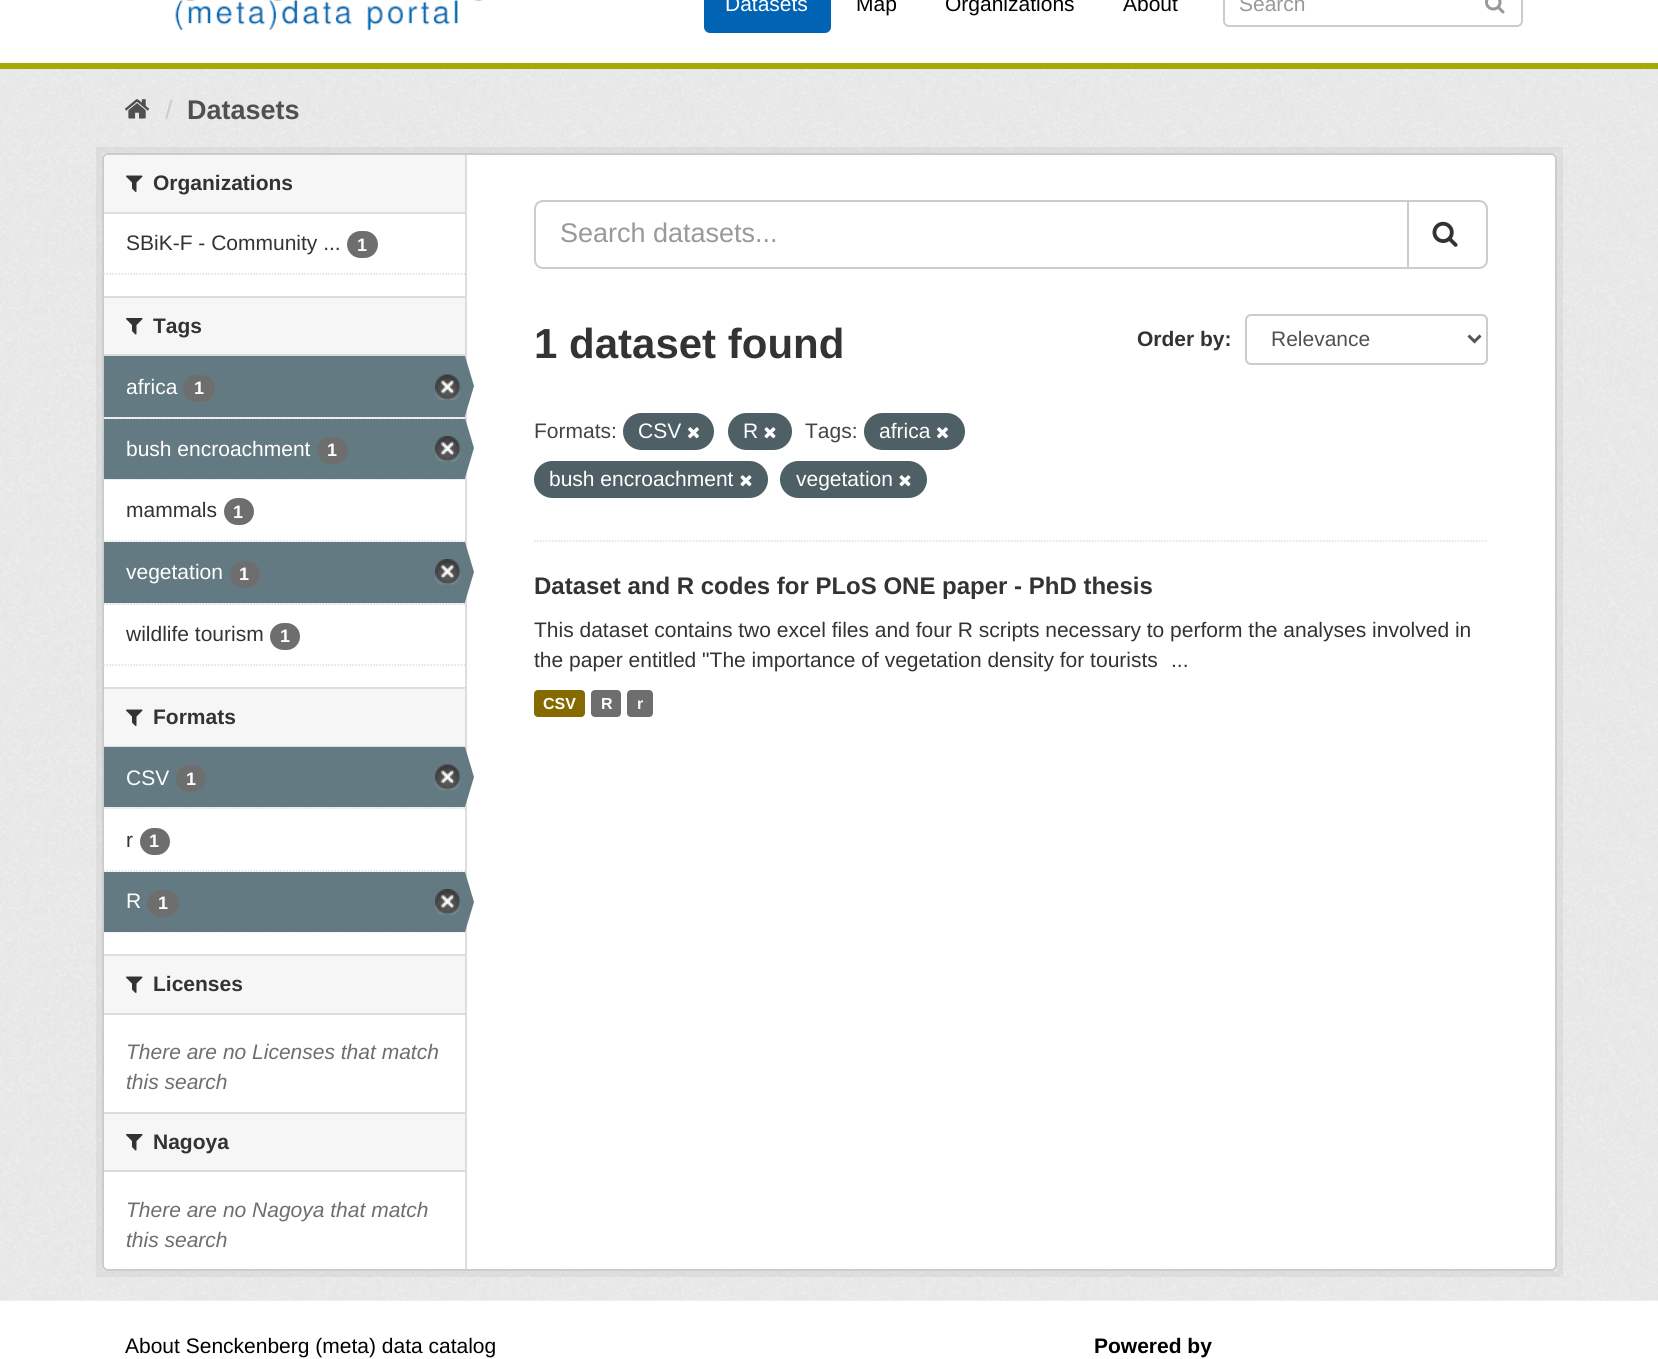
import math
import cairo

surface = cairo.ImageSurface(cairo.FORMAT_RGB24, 1658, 1359)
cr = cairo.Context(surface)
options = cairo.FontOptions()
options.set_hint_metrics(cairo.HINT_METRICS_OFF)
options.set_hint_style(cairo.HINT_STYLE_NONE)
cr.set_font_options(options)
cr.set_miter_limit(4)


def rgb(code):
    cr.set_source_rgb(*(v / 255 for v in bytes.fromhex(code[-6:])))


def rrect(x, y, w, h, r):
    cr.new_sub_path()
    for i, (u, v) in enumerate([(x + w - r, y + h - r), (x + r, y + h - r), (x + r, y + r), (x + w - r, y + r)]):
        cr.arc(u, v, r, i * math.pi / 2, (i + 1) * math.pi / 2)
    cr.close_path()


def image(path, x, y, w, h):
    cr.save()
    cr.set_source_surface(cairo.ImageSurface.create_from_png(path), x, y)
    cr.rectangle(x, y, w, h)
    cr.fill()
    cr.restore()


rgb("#ffffff")
cr.paint()
rgb("#a4aa00")
cr.rectangle(0, 63, 1658, 6)
cr.fill()
image("img/1.png", 175, 0, 308, 31)
rgb("#0063b4")
rrect(704, -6, 127, 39, 6)
cr.fill()
rrect(1224, -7, 298, 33, 5)
rgb("#cccccc")
cr.stroke()
image("img/2.png", 1485, 0, 20, 14)
rgb("#eeeeee")
cr.rectangle(0, 69, 1658, 1232)
cr.fill()
image("img/3.png", 0, 69, 1658, 1231)
image("img/4.png", 125, 99, 25, 20)
cr.rectangle(99, 150, 1461, 1124)
cr.set_source_rgba(0, 0, 0, 0.05)
cr.set_line_width(6)
cr.stroke()
rgb("#ffffff")
rrect(103, 154, 1453, 1116, 5)
cr.fill_preserve()
rgb("#cccccc")
cr.set_line_width(2)
cr.stroke()
rgb("#f6f6f6")
cr.new_path()
cr.move_to(109, 155)
cr.line_to(465, 155)
cr.line_to(465, 213)
cr.line_to(104, 213)
cr.line_to(104, 160)
cr.curve_to(104, 157, 106, 155, 109, 155)
cr.close_path()
cr.fill()
rgb("#dddddd")
cr.rectangle(104, 212, 361, 2)
cr.fill()
image("img/5.png", 126, 175, 17, 17)
rgb("#6e6e6e")
rrect(347, 231, 31, 27, 13.5)
cr.fill()
cr.new_path()
cr.move_to(103.5, 274)
cr.line_to(465, 274)
rgb("#dddddd")
cr.set_line_width(1.5)
cr.set_dash([1.5, 1.5])
cr.stroke()
for x, y, w, h, color in [
    (104, 298, 361, 56, "#f6f6f6"),
    (104, 296, 361, 2, "#dddddd"),
    (104, 354, 361, 2, "#dddddd"),
]:
    rgb(color)
    cr.rectangle(x, y, w, h)
    cr.fill()
image("img/6.png", 126, 318, 17, 17)
rgb("#f6f6f6")
cr.rectangle(104, 417, 361, 2)
cr.fill()
cr.new_path()
cr.move_to(103.5, 418)
cr.line_to(465, 418)
rgb("#dddddd")
cr.stroke()
rgb("#647a82")
cr.rectangle(104, 356, 361, 61)
cr.fill()
rgb("#6e6e6e")
rrect(183, 375, 32, 27, 13.5)
cr.fill()
image("img/7.png", 435, 374, 26, 26)
rgb("#dddddd")
cr.rectangle(465, 155, 2, 1114)
cr.fill()
rgb("#647a82")
cr.new_path()
cr.move_to(465, 416)
cr.line_to(465, 356)
cr.line_to(474, 386)
cr.close_path()
cr.fill()
rgb("#f6f6f6")
cr.rectangle(104, 479, 361, 1)
cr.fill()
cr.new_path()
cr.move_to(103.5, 479)
cr.line_to(465, 479)
rgb("#dddddd")
cr.stroke()
rgb("#647a82")
cr.rectangle(104, 419, 361, 60)
cr.fill()
rgb("#6e6e6e")
rrect(317, 437, 31, 27, 13.5)
cr.fill()
image("img/8.png", 435, 436, 26, 26)
rgb("#647a82")
cr.new_path()
cr.move_to(465, 478)
cr.line_to(465, 418)
cr.line_to(474, 448)
cr.close_path()
cr.fill()
cr.new_path()
cr.move_to(103.5, 541)
cr.line_to(465, 541)
rgb("#dddddd")
cr.stroke()
rgb("#6e6e6e")
rrect(224, 498, 30, 27, 13.5)
cr.fill()
rgb("#f6f6f6")
cr.rectangle(104, 603, 361, 2)
cr.fill()
cr.new_path()
cr.move_to(103.5, 604)
cr.line_to(465, 604)
rgb("#dddddd")
cr.stroke()
rgb("#647a82")
cr.rectangle(104, 542, 361, 61)
cr.fill()
rgb("#6e6e6e")
rrect(230, 561, 30, 27, 13.5)
cr.fill()
image("img/8.png", 435, 559, 26, 26)
rgb("#647a82")
cr.new_path()
cr.move_to(465, 602)
cr.line_to(465, 542)
cr.line_to(474, 572)
cr.close_path()
cr.fill()
rgb("#6e6e6e")
rrect(270, 623, 30, 27, 13.5)
cr.fill()
cr.new_path()
cr.move_to(103.5, 665)
cr.line_to(465, 665)
rgb("#dddddd")
cr.stroke()
for x, y, w, h, color in [
    (104, 689, 361, 57, "#f6f6f6"),
    (104, 687, 361, 2, "#dddddd"),
    (104, 746, 361, 1, "#dddddd"),
]:
    rgb(color)
    cr.rectangle(x, y, w, h)
    cr.fill()
image("img/5.png", 126, 709, 17, 17)
rgb("#f6f6f6")
cr.rectangle(104, 807, 361, 2)
cr.fill()
cr.new_path()
cr.move_to(103.5, 808)
cr.line_to(465, 808)
rgb("#dddddd")
cr.stroke()
rgb("#647a82")
cr.rectangle(104, 747, 361, 60)
cr.fill()
rgb("#6e6e6e")
rrect(176, 765, 30, 27, 13.5)
cr.fill()
image("img/7.png", 435, 764, 26, 26)
rgb("#647a82")
cr.new_path()
cr.move_to(465, 807)
cr.line_to(465, 747)
cr.line_to(474, 777)
cr.close_path()
cr.fill()
cr.new_path()
cr.move_to(103.5, 871)
cr.line_to(465, 871)
rgb("#dddddd")
cr.stroke()
rgb("#6e6e6e")
rrect(140, 828, 30, 27, 13.5)
cr.fill()
cr.new_path()
cr.move_to(103.5, 932)
cr.line_to(465, 932)
rgb("#dddddd")
cr.stroke()
rgb("#647a82")
cr.rectangle(104, 872, 361, 60)
cr.fill()
rgb("#6e6e6e")
rrect(147, 890, 32, 27, 13.5)
cr.fill()
image("img/8.png", 435, 889, 26, 26)
rgb("#647a82")
cr.new_path()
cr.move_to(465, 932)
cr.line_to(465, 872)
cr.line_to(474, 902)
cr.close_path()
cr.fill()
for x, y, w, h, color in [
    (104, 956, 361, 57, "#f6f6f6"),
    (104, 954, 361, 2, "#dddddd"),
    (104, 1013, 361, 2, "#dddddd"),
]:
    rgb(color)
    cr.rectangle(x, y, w, h)
    cr.fill()
image("img/5.png", 126, 976, 17, 17)
for x, y, w, h, color in [
    (104, 1114, 361, 56, "#f6f6f6"),
    (104, 1112, 361, 2, "#dddddd"),
    (104, 1170, 361, 2, "#dddddd"),
]:
    rgb(color)
    cr.rectangle(x, y, w, h)
    cr.fill()
image("img/6.png", 126, 1134, 17, 17)
cr.new_path()
cr.move_to(534, 541)
cr.line_to(1488, 541)
cr.stroke()
rgb("#ececec")
cr.new_path()
cr.move_to(543, 202)
cr.line_to(1407, 202)
cr.line_to(1407, 201)
cr.line_to(544, 201)
cr.curve_to(539, 201, 536, 205, 536, 210)
cr.curve_to(536, 206, 539, 202, 543, 202)
cr.close_path()
cr.fill()
cr.new_path()
cr.move_to(543, 201)
cr.line_to(1408, 201)
cr.line_to(1408, 268)
cr.line_to(543, 268)
cr.curve_to(538.5, 268, 535, 264.5, 535, 260)
cr.line_to(535, 209)
cr.curve_to(535, 204.5, 538.5, 201, 543, 201)
cr.close_path()
rgb("#cccccc")
cr.set_line_width(2)
cr.set_dash([])
cr.stroke()
rgb("#ffffff")
cr.new_path()
cr.move_to(1408, 201)
cr.line_to(1479, 201)
cr.curve_to(1483.5, 201, 1487, 204.5, 1487, 209)
cr.line_to(1487, 260)
cr.curve_to(1487, 264.5, 1483.5, 268, 1479, 268)
cr.line_to(1408, 268)
cr.close_path()
cr.fill_preserve()
rgb("#cccccc")
cr.stroke()
image("img/9.png", 1432, 221, 26, 26)
rgb("#ececec")
cr.new_path()
cr.move_to(1251, 316)
cr.line_to(1482, 316)
cr.curve_to(1484, 316, 1486, 319, 1486, 321)
cr.line_to(1486, 361)
cr.curve_to(1487, 360, 1487, 359, 1487, 358)
cr.line_to(1487, 320)
cr.curve_to(1487, 317, 1485, 315, 1482, 315)
cr.line_to(1252, 315)
cr.curve_to(1250, 315, 1248, 316, 1247, 318)
cr.curve_to(1248, 317, 1250, 316, 1251, 316)
cr.close_path()
cr.fill()
rrect(1246, 315, 241, 49, 5)
rgb("#cccccc")
cr.stroke()
cr.new_path()
cr.move_to(1468.5, 335.5)
cr.line_to(1474.5, 341.5)
cr.line_to(1480.5, 335.5)
rgb("#555555")
cr.set_line_width(3)
cr.stroke()
rgb("#4e5f65")
rrect(623, 413, 91, 37, 18.5)
cr.fill()
image("img/10.png", 688, 427, 11, 12)
rrect(728, 413, 64, 37, 18.5)
cr.fill()
image("img/11.png", 764, 427, 12, 12)
rrect(864, 413, 101, 37, 18.5)
cr.fill()
image("img/10.png", 937, 427, 11, 12)
rrect(534, 461, 234, 37, 18.5)
cr.fill()
image("img/11.png", 740, 475, 12, 12)
rrect(780, 461, 147, 37, 18.5)
cr.fill()
image("img/11.png", 899, 475, 12, 12)
rgb("#856a00")
rrect(534, 690, 51, 27, 4)
cr.fill()
rgb("#6e6e6e")
rrect(591, 690, 30, 27, 4)
cr.fill()
rrect(627, 690, 26, 27, 4)
cr.fill()
cr.select_font_face("Liberation Sans")
cr.set_font_size(21)
rgb("#ffffff")
cr.move_to(725, 11)
cr.show_text("Datasets")
rgb("#000000")
for x, y, s in [
    (856, 11, "Map"),
    (945, 11, "Organizations"),
    (1123, 11, "About"),
]:
    cr.move_to(x, y)
    cr.show_text(s)
rgb("#999999")
cr.move_to(1239, 11)
cr.show_text("Search")
cr.set_font_size(27)
rgb("#cccccc")
cr.move_to(165, 119)
cr.show_text("/")
cr.select_font_face("Liberation Sans", cairo.FONT_SLANT_NORMAL, cairo.FONT_WEIGHT_BOLD)
rgb("#505050")
cr.move_to(187, 119)
cr.show_text("Datasets")
cr.set_font_size(21)
rgb("#333333")
cr.move_to(153, 190)
cr.show_text("Organizations")
cr.select_font_face("Liberation Sans")
cr.move_to(126, 250)
cr.show_text("SBiK-F - Community ...")
cr.select_font_face("Liberation Sans", cairo.FONT_SLANT_NORMAL, cairo.FONT_WEIGHT_BOLD)
cr.set_font_size(18)
rgb("#ffffff")
cr.move_to(357, 251)
cr.show_text("1")
cr.set_font_size(21)
rgb("#333333")
cr.move_to(153, 333)
cr.show_text("Tags")
cr.select_font_face("Liberation Sans")
rgb("#ffffff")
cr.move_to(126, 394)
cr.show_text("africa")
cr.select_font_face("Liberation Sans", cairo.FONT_SLANT_NORMAL, cairo.FONT_WEIGHT_BOLD)
cr.set_font_size(18)
cr.move_to(194, 394)
cr.show_text("1")
cr.select_font_face("Liberation Sans")
cr.set_font_size(21)
cr.move_to(126, 456)
cr.show_text("bush encroachment")
cr.select_font_face("Liberation Sans", cairo.FONT_SLANT_NORMAL, cairo.FONT_WEIGHT_BOLD)
cr.set_font_size(18)
cr.move_to(327, 456)
cr.show_text("1")
cr.select_font_face("Liberation Sans")
cr.set_font_size(21)
rgb("#333333")
cr.move_to(126, 517)
cr.show_text("mammals")
cr.select_font_face("Liberation Sans", cairo.FONT_SLANT_NORMAL, cairo.FONT_WEIGHT_BOLD)
cr.set_font_size(18)
rgb("#ffffff")
cr.move_to(233, 518)
cr.show_text("1")
cr.select_font_face("Liberation Sans")
cr.set_font_size(21)
cr.move_to(126, 579)
cr.show_text("vegetation")
cr.select_font_face("Liberation Sans", cairo.FONT_SLANT_NORMAL, cairo.FONT_WEIGHT_BOLD)
cr.set_font_size(18)
cr.move_to(239, 580)
cr.show_text("1")
cr.select_font_face("Liberation Sans")
cr.set_font_size(21)
rgb("#333333")
cr.move_to(126, 641)
cr.show_text("wildlife tourism")
cr.select_font_face("Liberation Sans", cairo.FONT_SLANT_NORMAL, cairo.FONT_WEIGHT_BOLD)
cr.set_font_size(18)
rgb("#ffffff")
cr.move_to(280, 642)
cr.show_text("1")
cr.set_font_size(21)
rgb("#333333")
cr.move_to(153, 724)
cr.show_text("Formats")
cr.select_font_face("Liberation Sans")
rgb("#ffffff")
cr.move_to(126, 785)
cr.show_text("CSV")
cr.select_font_face("Liberation Sans", cairo.FONT_SLANT_NORMAL, cairo.FONT_WEIGHT_BOLD)
cr.set_font_size(18)
cr.move_to(186, 785)
cr.show_text("1")
cr.select_font_face("Liberation Sans")
cr.set_font_size(21)
rgb("#333333")
cr.move_to(126, 847)
cr.show_text("r")
cr.select_font_face("Liberation Sans", cairo.FONT_SLANT_NORMAL, cairo.FONT_WEIGHT_BOLD)
cr.set_font_size(18)
rgb("#ffffff")
cr.move_to(149, 847)
cr.show_text("1")
cr.select_font_face("Liberation Sans")
cr.set_font_size(21)
cr.move_to(126, 908)
cr.show_text("R")
cr.select_font_face("Liberation Sans", cairo.FONT_SLANT_NORMAL, cairo.FONT_WEIGHT_BOLD)
cr.set_font_size(18)
cr.move_to(158, 909)
cr.show_text("1")
cr.set_font_size(21)
rgb("#333333")
cr.move_to(153, 991)
cr.show_text("Licenses")
cr.select_font_face("Liberation Sans", cairo.FONT_SLANT_ITALIC)
rgb("#6e6e6e")
cr.move_to(126, 1059)
cr.show_text("There are no Licenses that match")
cr.move_to(126, 1089)
cr.show_text("this search")
cr.select_font_face("Liberation Sans", cairo.FONT_SLANT_NORMAL, cairo.FONT_WEIGHT_BOLD)
rgb("#333333")
cr.move_to(153, 1149)
cr.show_text("Nagoya")
cr.select_font_face("Liberation Sans", cairo.FONT_SLANT_ITALIC)
rgb("#6e6e6e")
cr.move_to(126, 1217)
cr.show_text("There are no Nagoya that match")
cr.move_to(126, 1247)
cr.show_text("this search")
cr.select_font_face("Liberation Sans")
cr.set_font_size(27)
rgb("#999999")
cr.move_to(560, 242)
cr.show_text("Search datasets...")
cr.select_font_face("Liberation Sans", cairo.FONT_SLANT_NORMAL, cairo.FONT_WEIGHT_BOLD)
cr.set_font_size(42)
rgb("#333333")
cr.move_to(534, 358)
cr.show_text("1 dataset found")
cr.set_font_size(21)
cr.move_to(1137, 346)
cr.show_text("Order by:")
cr.select_font_face("Liberation Sans")
rgb("#505050")
cr.move_to(1271, 346)
cr.show_text("Relevance")
rgb("#444444")
cr.move_to(534, 438)
cr.show_text("Formats:")
rgb("#ffffff")
cr.move_to(638, 438)
cr.show_text("CSV")
cr.move_to(743, 438)
cr.show_text("R")
rgb("#444444")
cr.move_to(805, 438)
cr.show_text("Tags:")
rgb("#ffffff")
for x, y, s in [
    (879, 438, "africa"),
    (549, 486, "bush encroachment"),
    (796, 486, "vegetation"),
]:
    cr.move_to(x, y)
    cr.show_text(s)
cr.select_font_face("Liberation Sans", cairo.FONT_SLANT_NORMAL, cairo.FONT_WEIGHT_BOLD)
cr.set_font_size(24)
rgb("#333333")
cr.move_to(534, 594)
cr.show_text("Dataset and R codes for PLoS ONE paper - PhD thesis")
cr.select_font_face("Liberation Sans")
cr.set_font_size(21)
for x, y, s in [
    (534, 637, "This dataset contains two excel files and four R scripts necessary to perform the analyses involved in"),
    (534, 667, "the paper entitled \"The importance of vegetation density for tourists"),
    (1171, 667, "..."),
]:
    cr.move_to(x, y)
    cr.show_text(s)
cr.select_font_face("Liberation Sans", cairo.FONT_SLANT_NORMAL, cairo.FONT_WEIGHT_BOLD)
cr.set_font_size(16)
rgb("#ffffff")
for x, y, s in [
    (543, 709, "CSV"),
    (601, 709, "R"),
    (637, 709, "r"),
]:
    cr.move_to(x, y)
    cr.show_text(s)
cr.select_font_face("Liberation Sans")
cr.set_font_size(21)
rgb("#000000")
cr.move_to(125, 1353)
cr.show_text("About Senckenberg (meta) data catalog")
cr.select_font_face("Liberation Sans", cairo.FONT_SLANT_NORMAL, cairo.FONT_WEIGHT_BOLD)
cr.move_to(1094, 1353)
cr.show_text("Powered by")
surface.write_to_png("page.png")
